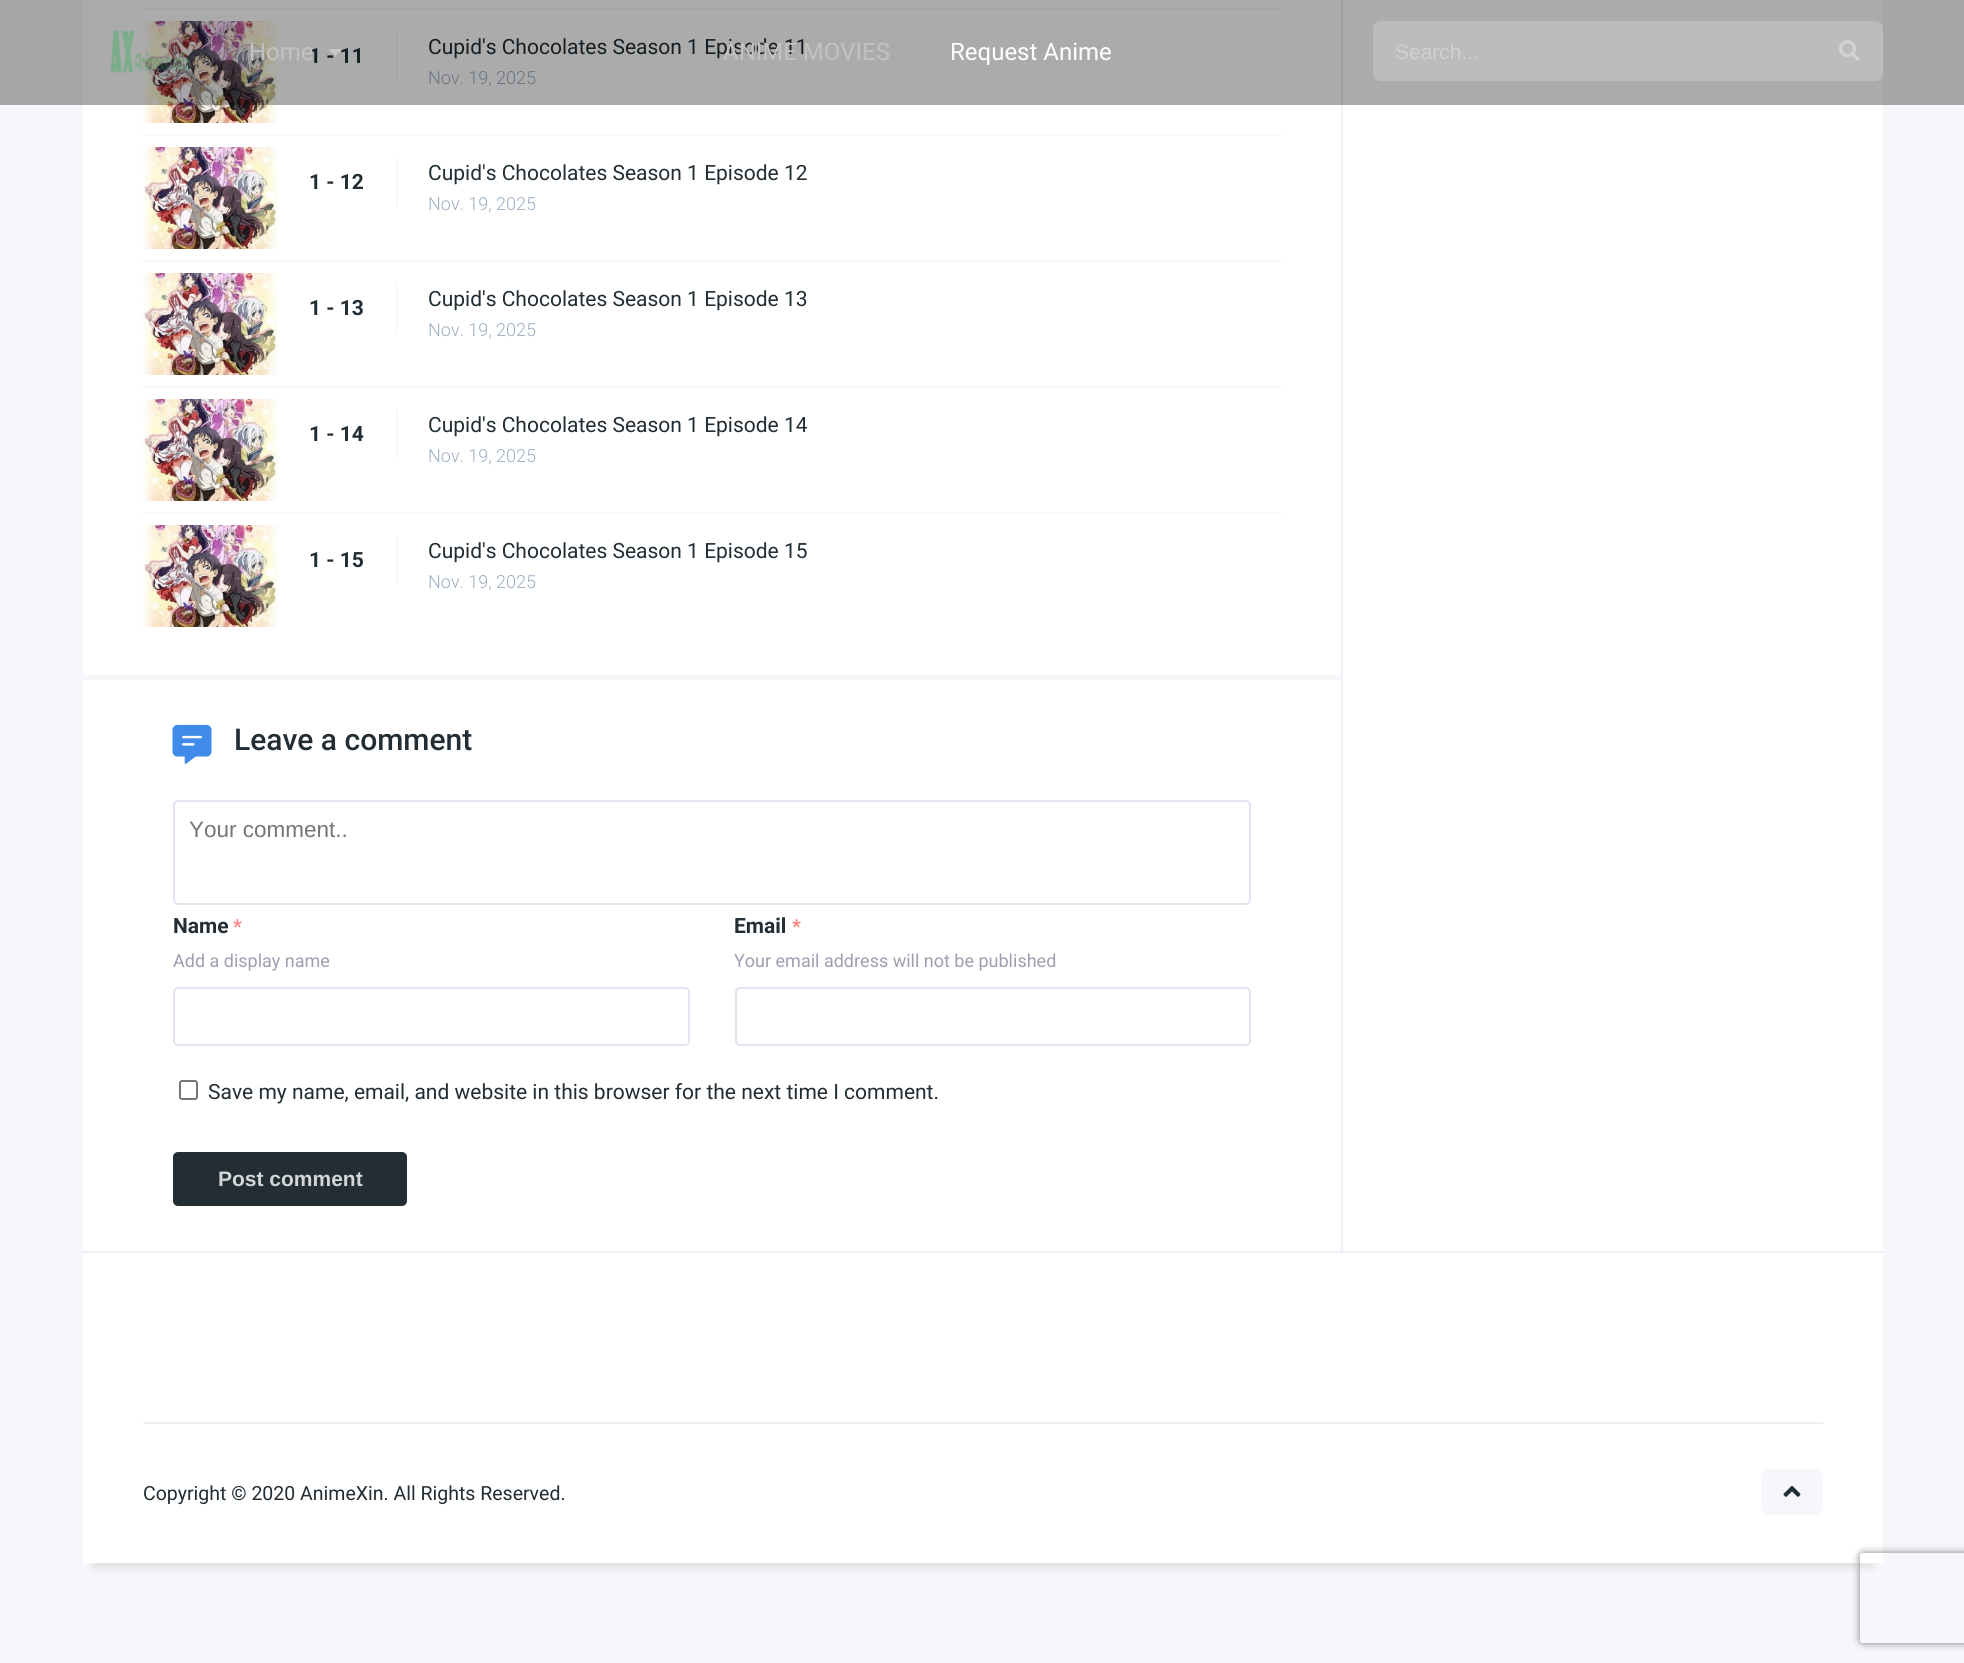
import math
import cairo

surface = cairo.ImageSurface(cairo.FORMAT_RGB24, 1964, 1663)
cr = cairo.Context(surface)
options = cairo.FontOptions()
options.set_hint_metrics(cairo.HINT_METRICS_OFF)
options.set_hint_style(cairo.HINT_STYLE_NONE)
cr.set_font_options(options)
cr.set_miter_limit(4)


def rgb(code):
    cr.set_source_rgb(*(v / 255 for v in bytes.fromhex(code[-6:])))


def rrect(x, y, w, h, r):
    cr.new_sub_path()
    for i, (u, v) in enumerate([(x + w - r, y + h - r), (x + r, y + h - r), (x + r, y + r), (x + w - r, y + r)]):
        cr.arc(u, v, r, i * math.pi / 2, (i + 1) * math.pi / 2)
    cr.close_path()


def soft_shadow(x, y, w, h, r, blur, alpha):
    cr.push_group_with_content(cairo.CONTENT_ALPHA)
    cr.set_operator(cairo.OPERATOR_SOURCE)
    for i in range(15, -16, -2):
        e = blur * i / 6
        if min(w, h) + 2 * e > 0:
            cr.set_source_rgba(0, 0, 0, alpha * math.erfc((i - 1) / 8.5) / 2)
            rrect(x - e, y - e, w + 2 * e, h + 2 * e, max(0, min(r + e + blur * .6, min(w, h) / 2 + e)))
            cr.fill()
    cr.mask(cr.pop_group())


def image(path, x, y, w, h):
    cr.save()
    cr.set_source_surface(cairo.ImageSurface.create_from_png(path), x, y)
    cr.rectangle(x, y, w, h)
    cr.fill()
    cr.restore()


rgb("#f5f7fa")
cr.paint()
for x, y, w, h, color in [
    (83, 0, 1800, 1251, "#ffffff"),
    (83, 1251, 1800, 2, "#eceff5"),
    (1341, 0, 2, 1251, "#eceff5"),
    (83, 675, 1258, 5, "#f5f7fa"),
    (143, 8, 1138, 2, "#f5f7fa"),
    (143, 134, 1138, 2, "#f5f7fa"),
]:
    rgb(color)
    cr.rectangle(x, y, w, h)
    cr.fill()
image("img/1.png", 142, 21, 136, 102)
cr.rectangle(396, 32, 2, 48)
cr.fill()
cr.rectangle(143, 260, 1138, 2)
cr.fill()
image("img/2.png", 142, 147, 136, 102)
cr.rectangle(396, 158, 2, 48)
cr.fill()
cr.rectangle(143, 386, 1138, 2)
cr.fill()
image("img/1.png", 142, 273, 136, 102)
cr.rectangle(396, 284, 2, 48)
cr.fill()
cr.rectangle(143, 512, 1138, 2)
cr.fill()
image("img/1.png", 142, 399, 136, 102)
cr.rectangle(396, 410, 2, 48)
cr.fill()
image("img/3.png", 142, 525, 136, 102)
cr.rectangle(396, 536, 2, 48)
cr.fill()
image("img/4.png", 172, 724, 40, 40)
rrect(174, 801, 1076, 103, 4)
rgb("#e0e5ef")
cr.stroke()
rrect(174, 988, 515, 57, 4)
cr.stroke()
rrect(736, 988, 514, 57, 4)
cr.stroke()
rrect(180, 1081, 17, 18, 2)
rgb("#767676")
cr.stroke()
rgb("#222d34")
rrect(173, 1152, 234, 54, 5)
cr.fill()
rgb("#000000")
soft_shadow(93, 1278, 1779, 290, 0, 4, 0.09)
rgb("#ffffff")
cr.rectangle(83, 1253, 1800, 310)
cr.fill()
rgb("#eceff5")
cr.rectangle(143, 1422, 1680, 2)
cr.fill()
rgb("#f5f7fa")
rrect(1761, 1469, 62, 46, 9)
cr.fill()
image("img/8.png", 1783, 1486, 18, 11)
cr.save()
cr.set_fill_rule(cairo.FILL_RULE_EVEN_ODD)
cr.new_path()
cr.move_to(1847, 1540)
cr.line_to(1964, 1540)
cr.line_to(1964, 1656)
cr.line_to(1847, 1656)
cr.close_path()
cr.move_to(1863, 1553)
cr.line_to(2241, 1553)
cr.curve_to(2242.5, 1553, 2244, 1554.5, 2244, 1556)
cr.line_to(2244, 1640)
cr.curve_to(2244, 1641.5, 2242.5, 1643, 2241, 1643)
cr.line_to(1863, 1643)
cr.curve_to(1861.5, 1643, 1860, 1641.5, 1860, 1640)
cr.line_to(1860, 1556)
cr.curve_to(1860, 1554.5, 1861.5, 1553, 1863, 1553)
cr.close_path()
cr.clip()
rgb("#808080")
soft_shadow(1860, 1553, 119, 90, 3, 4, 1)
cr.restore()
cr.select_font_face("Roboto", cairo.FONT_SLANT_NORMAL, cairo.FONT_WEIGHT_BOLD)
cr.set_font_size(21)
rgb("#222d34")
cr.move_to(309, 63)
cr.show_text("1 - 11")
cr.select_font_face("Roboto")
cr.move_to(428, 54)
cr.show_text("Cupid's Chocolates Season 1 Episode 11")
cr.select_font_face("Roboto Light")
cr.set_font_size(18)
rgb("#9caec1")
cr.move_to(428, 84)
cr.show_text("Nov. 19, 2025")
cr.select_font_face("Roboto", cairo.FONT_SLANT_NORMAL, cairo.FONT_WEIGHT_BOLD)
cr.set_font_size(21)
rgb("#222d34")
cr.move_to(309, 189)
cr.show_text("1 - 12")
cr.select_font_face("Roboto")
cr.move_to(428, 180)
cr.show_text("Cupid's Chocolates Season 1 Episode 12")
cr.select_font_face("Roboto Light")
cr.set_font_size(18)
rgb("#9caec1")
cr.move_to(428, 210)
cr.show_text("Nov. 19, 2025")
cr.select_font_face("Roboto", cairo.FONT_SLANT_NORMAL, cairo.FONT_WEIGHT_BOLD)
cr.set_font_size(21)
rgb("#222d34")
cr.move_to(309, 315)
cr.show_text("1 - 13")
cr.select_font_face("Roboto")
cr.move_to(428, 306)
cr.show_text("Cupid's Chocolates Season 1 Episode 13")
cr.select_font_face("Roboto Light")
cr.set_font_size(18)
rgb("#9caec1")
cr.move_to(428, 336)
cr.show_text("Nov. 19, 2025")
cr.select_font_face("Roboto", cairo.FONT_SLANT_NORMAL, cairo.FONT_WEIGHT_BOLD)
cr.set_font_size(21)
rgb("#222d34")
cr.move_to(309, 441)
cr.show_text("1 - 14")
cr.select_font_face("Roboto")
cr.move_to(428, 432)
cr.show_text("Cupid's Chocolates Season 1 Episode 14")
cr.select_font_face("Roboto Light")
cr.set_font_size(18)
rgb("#9caec1")
cr.move_to(428, 462)
cr.show_text("Nov. 19, 2025")
cr.select_font_face("Roboto", cairo.FONT_SLANT_NORMAL, cairo.FONT_WEIGHT_BOLD)
cr.set_font_size(21)
rgb("#222d34")
cr.move_to(309, 567)
cr.show_text("1 - 15")
cr.select_font_face("Roboto")
cr.move_to(428, 558)
cr.show_text("Cupid's Chocolates Season 1 Episode 15")
cr.select_font_face("Roboto Light")
cr.set_font_size(18)
rgb("#9caec1")
cr.move_to(428, 588)
cr.show_text("Nov. 19, 2025")
cr.select_font_face("Roboto Medium")
cr.set_font_size(30)
rgb("#222d34")
cr.move_to(234, 750)
cr.show_text("Leave a comment")
cr.select_font_face("Liberation Sans")
cr.set_font_size(22.5)
rgb("#757575")
cr.move_to(189, 837)
cr.show_text("Your comment..")
cr.select_font_face("Roboto", cairo.FONT_SLANT_NORMAL, cairo.FONT_WEIGHT_BOLD)
cr.set_font_size(21)
rgb("#222d34")
cr.move_to(173, 933)
cr.show_text("Name")
cr.set_font_size(19.5)
rgb("#ff8181")
cr.move_to(233, 933)
cr.show_text("*")
cr.select_font_face("Roboto")
cr.set_font_size(18)
rgb("#9d9fb1")
cr.move_to(173, 967)
cr.show_text("Add a display name")
cr.select_font_face("Roboto", cairo.FONT_SLANT_NORMAL, cairo.FONT_WEIGHT_BOLD)
cr.set_font_size(21)
rgb("#222d34")
cr.move_to(734, 933)
cr.show_text("Email")
cr.set_font_size(19.5)
rgb("#ff8181")
cr.move_to(792, 933)
cr.show_text("*")
cr.select_font_face("Roboto")
cr.set_font_size(18)
rgb("#9d9fb1")
cr.move_to(734, 967)
cr.show_text("Your email address will not be published")
cr.set_font_size(21)
rgb("#222d34")
cr.move_to(208, 1099)
cr.show_text("Save my name, email, and website in this browser for the next time I comment.")
cr.select_font_face("Liberation Sans", cairo.FONT_SLANT_NORMAL, cairo.FONT_WEIGHT_BOLD)
rgb("#d3d5d6")
cr.move_to(218, 1186)
cr.show_text("Post comment")
cr.set_source_rgba(0, 0, 0, 0.33)
cr.rectangle(0, 0, 1964, 105)
cr.fill()
image("img/5.png", 110, 30, 80, 43)
cr.select_font_face("Roboto")
cr.set_font_size(24)
rgb("#c2c2bf")
cr.move_to(249, 60)
cr.show_text("Home")
image("img/6.png", 329, 49, 12, 7)
cr.move_to(723, 60)
cr.show_text("ANIME MOVIES")
rgb("#ffffff")
cr.move_to(950, 60)
cr.show_text("Request Anime")
rgb("#bcbcbc")
rrect(1373, 21, 510, 60, 8)
cr.fill()
cr.select_font_face("Liberation Sans")
cr.set_font_size(21)
rgb("#d0d0d0")
cr.move_to(1395, 59)
cr.show_text("Search...")
image("img/7.png", 1839, 40, 21, 21)
cr.select_font_face("Roboto")
cr.set_font_size(19.5)
rgb("#222d34")
cr.move_to(143, 1500)
cr.show_text("Copyright © 2020 AnimeXin. All Rights Reserved.")
surface.write_to_png("page.png")
